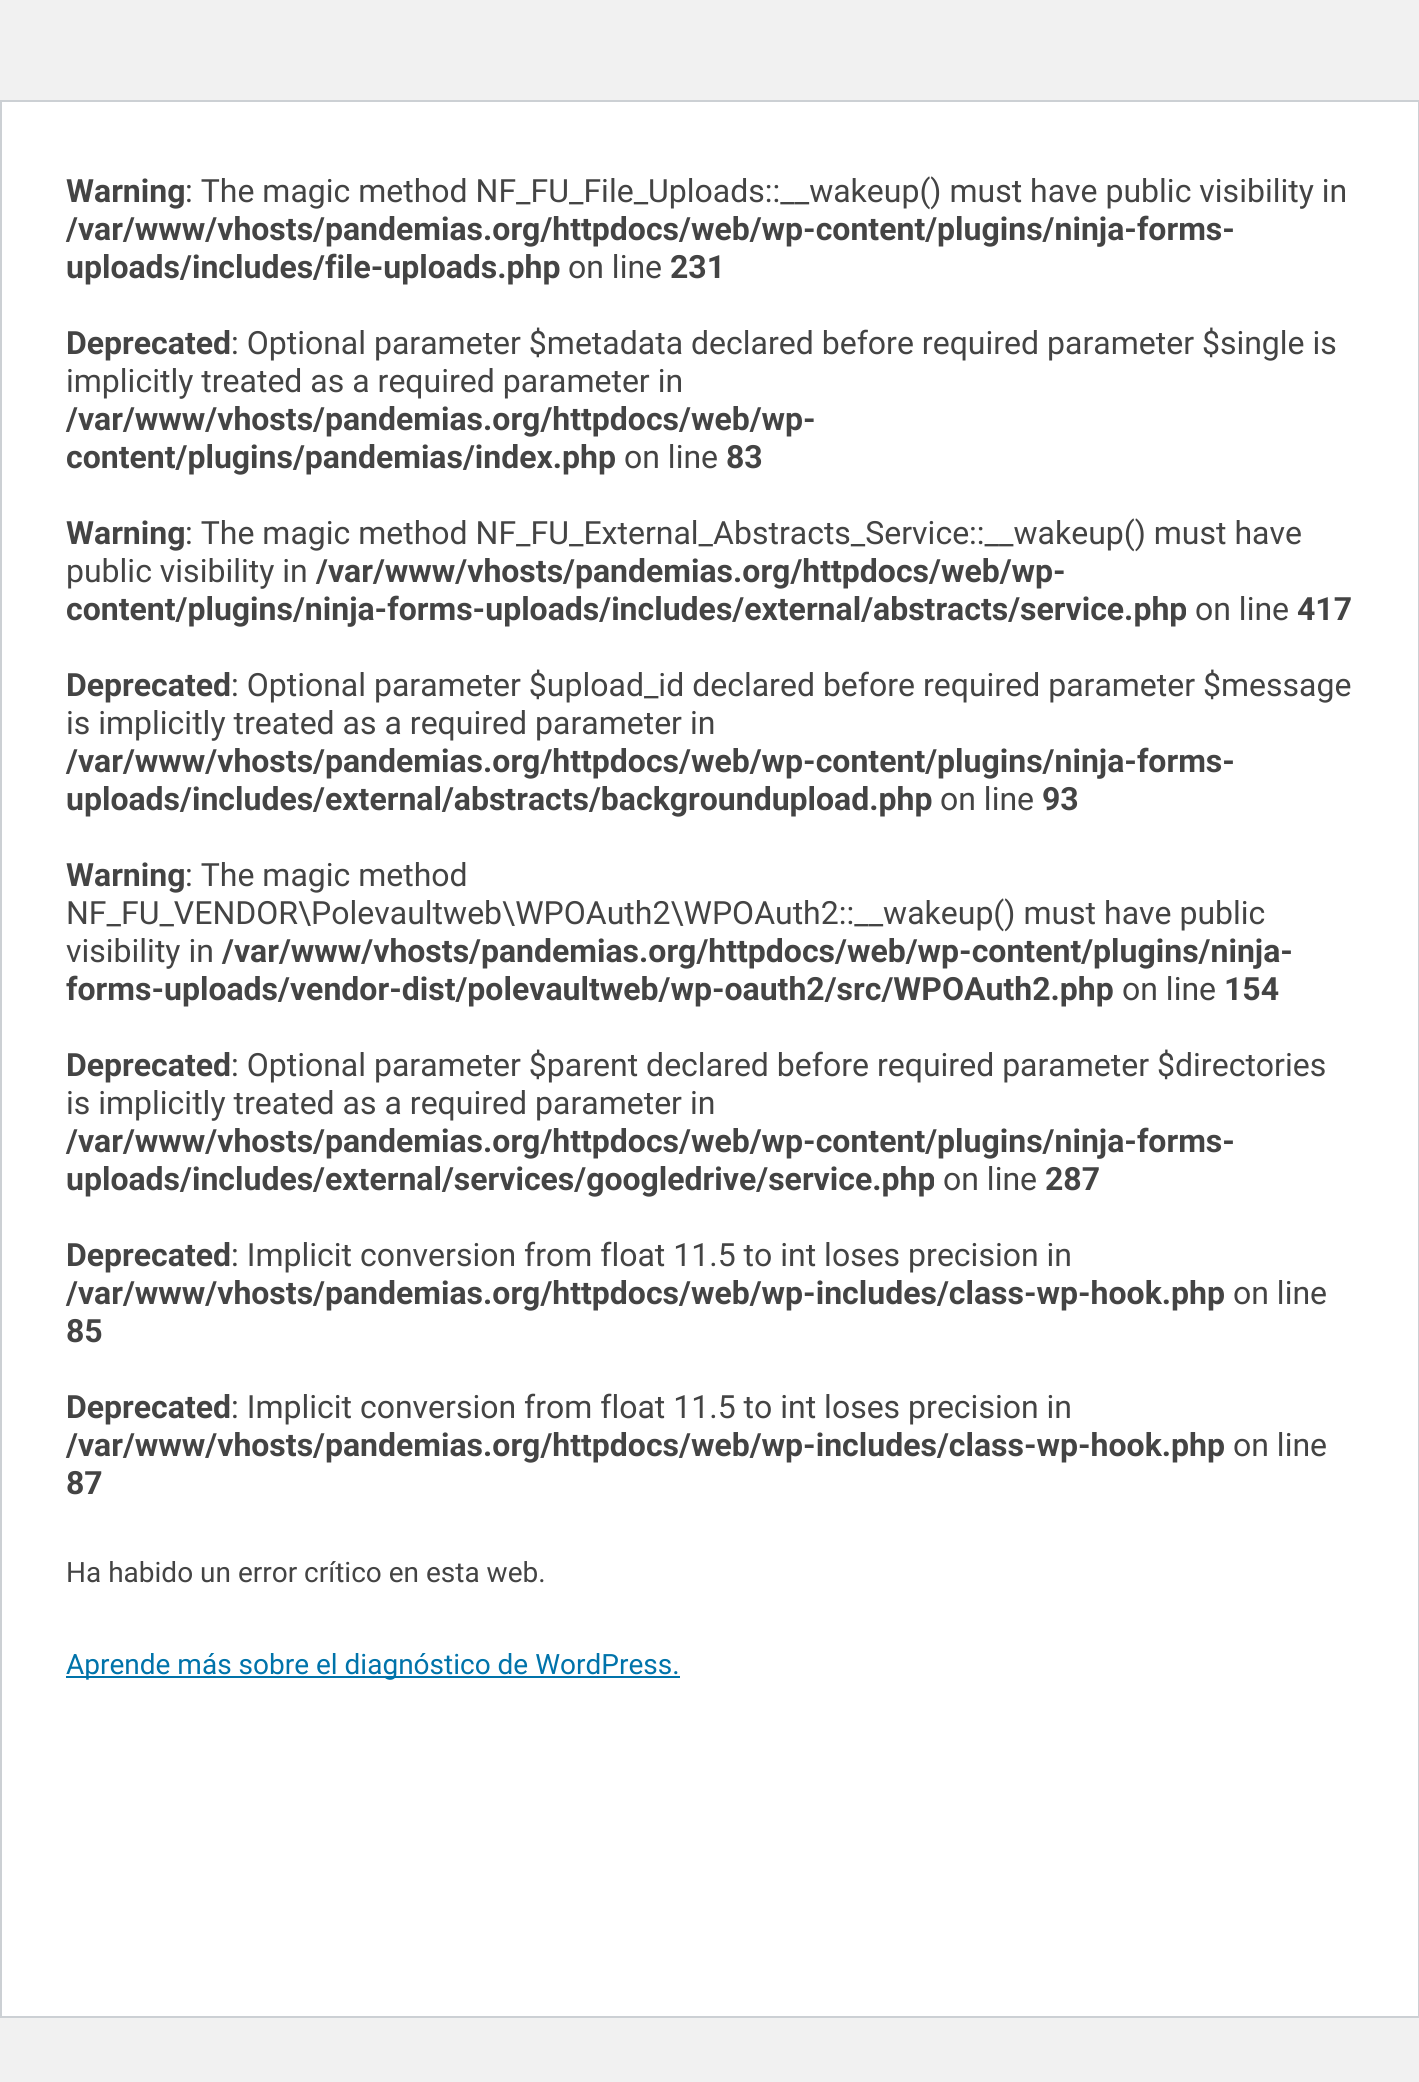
import math
import cairo

surface = cairo.ImageSurface(cairo.FORMAT_RGB24, 1419, 2082)
cr = cairo.Context(surface)
options = cairo.FontOptions()
options.set_hint_metrics(cairo.HINT_METRICS_OFF)
options.set_hint_style(cairo.HINT_STYLE_NONE)
cr.set_font_options(options)
cr.set_miter_limit(4)


def rgb(code):
    cr.set_source_rgb(*(v / 255 for v in bytes.fromhex(code[-6:])))


rgb("#f1f1f1")
cr.paint()
rgb("#ffffff")
cr.rectangle(1, 101, 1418, 1916)
cr.fill_preserve()
rgb("#ccd0d4")
cr.stroke()
rgb("#0073aa")
cr.rectangle(66, 1676, 614, 2)
cr.fill()
cr.select_font_face("Roboto", cairo.FONT_SLANT_NORMAL, cairo.FONT_WEIGHT_BOLD)
cr.set_font_size(32)
rgb("#444444")
cr.move_to(66, 202)
cr.show_text("Warning")
cr.select_font_face("Roboto")
cr.move_to(185, 202)
cr.show_text(": The magic method NF_FU_File_Uploads::__wakeup() must have public visibility in")
cr.select_font_face("Roboto", cairo.FONT_SLANT_NORMAL, cairo.FONT_WEIGHT_BOLD)
cr.move_to(66, 240)
cr.show_text("/var/www/vhosts/pandemias.org/httpdocs/web/wp-content/plugins/ninja-forms-")
cr.move_to(66, 278)
cr.show_text("uploads/includes/file-uploads.php")
cr.select_font_face("Roboto")
cr.move_to(568, 278)
cr.show_text("on line")
cr.select_font_face("Roboto", cairo.FONT_SLANT_NORMAL, cairo.FONT_WEIGHT_BOLD)
cr.move_to(670, 278)
cr.show_text("231")
cr.move_to(66, 354)
cr.show_text("Deprecated")
cr.select_font_face("Roboto")
cr.move_to(231, 354)
cr.show_text(": Optional parameter $metadata declared before required parameter $single is")
cr.move_to(66, 392)
cr.show_text("implicitly treated as a required parameter in")
cr.select_font_face("Roboto", cairo.FONT_SLANT_NORMAL, cairo.FONT_WEIGHT_BOLD)
cr.move_to(66, 430)
cr.show_text("/var/www/vhosts/pandemias.org/httpdocs/web/wp-")
cr.move_to(66, 468)
cr.show_text("content/plugins/pandemias/index.php")
cr.select_font_face("Roboto")
cr.move_to(624, 468)
cr.show_text("on line")
cr.select_font_face("Roboto", cairo.FONT_SLANT_NORMAL, cairo.FONT_WEIGHT_BOLD)
cr.move_to(726, 468)
cr.show_text("83")
cr.move_to(66, 544)
cr.show_text("Warning")
cr.select_font_face("Roboto")
cr.move_to(185, 544)
cr.show_text(": The magic method NF_FU_External_Abstracts_Service::__wakeup() must have")
cr.move_to(66, 582)
cr.show_text("public visibility in")
cr.select_font_face("Roboto", cairo.FONT_SLANT_NORMAL, cairo.FONT_WEIGHT_BOLD)
cr.move_to(316, 582)
cr.show_text("/var/www/vhosts/pandemias.org/httpdocs/web/wp-")
cr.move_to(66, 620)
cr.show_text("content/plugins/ninja-forms-uploads/includes/external/abstracts/service.php")
cr.select_font_face("Roboto")
cr.move_to(1195, 620)
cr.show_text("on line")
cr.select_font_face("Roboto", cairo.FONT_SLANT_NORMAL, cairo.FONT_WEIGHT_BOLD)
cr.move_to(1297, 620)
cr.show_text("417")
cr.move_to(66, 696)
cr.show_text("Deprecated")
cr.select_font_face("Roboto")
cr.move_to(231, 696)
cr.show_text(": Optional parameter $upload_id declared before required parameter $message")
cr.move_to(66, 734)
cr.show_text("is implicitly treated as a required parameter in")
cr.select_font_face("Roboto", cairo.FONT_SLANT_NORMAL, cairo.FONT_WEIGHT_BOLD)
cr.move_to(66, 772)
cr.show_text("/var/www/vhosts/pandemias.org/httpdocs/web/wp-content/plugins/ninja-forms-")
cr.move_to(66, 810)
cr.show_text("uploads/includes/external/abstracts/backgroundupload.php")
cr.select_font_face("Roboto")
cr.move_to(940, 810)
cr.show_text("on line")
cr.select_font_face("Roboto", cairo.FONT_SLANT_NORMAL, cairo.FONT_WEIGHT_BOLD)
cr.move_to(1042, 810)
cr.show_text("93")
cr.move_to(66, 886)
cr.show_text("Warning")
cr.select_font_face("Roboto")
for x, y, s in [
    (185, 886, ": The magic method"),
    (66, 924, "NF_FU_VENDOR\\Polevaultweb\\WPOAuth2\\WPOAuth2::__wakeup() must have public"),
    (66, 962, "visibility in"),
]:
    cr.move_to(x, y)
    cr.show_text(s)
cr.select_font_face("Roboto", cairo.FONT_SLANT_NORMAL, cairo.FONT_WEIGHT_BOLD)
cr.move_to(222, 962)
cr.show_text("/var/www/vhosts/pandemias.org/httpdocs/web/wp-content/plugins/ninja-")
cr.move_to(66, 1000)
cr.show_text("forms-uploads/vendor-dist/polevaultweb/wp-oauth2/src/WPOAuth2.php")
cr.select_font_face("Roboto")
cr.move_to(1122, 1000)
cr.show_text("on line")
cr.select_font_face("Roboto", cairo.FONT_SLANT_NORMAL, cairo.FONT_WEIGHT_BOLD)
cr.move_to(1224, 1000)
cr.show_text("154")
cr.move_to(66, 1076)
cr.show_text("Deprecated")
cr.select_font_face("Roboto")
cr.move_to(231, 1076)
cr.show_text(": Optional parameter $parent declared before required parameter $directories")
cr.move_to(66, 1114)
cr.show_text("is implicitly treated as a required parameter in")
cr.select_font_face("Roboto", cairo.FONT_SLANT_NORMAL, cairo.FONT_WEIGHT_BOLD)
cr.move_to(66, 1152)
cr.show_text("/var/www/vhosts/pandemias.org/httpdocs/web/wp-content/plugins/ninja-forms-")
cr.move_to(66, 1190)
cr.show_text("uploads/includes/external/services/googledrive/service.php")
cr.select_font_face("Roboto")
cr.move_to(943, 1190)
cr.show_text("on line")
cr.select_font_face("Roboto", cairo.FONT_SLANT_NORMAL, cairo.FONT_WEIGHT_BOLD)
cr.move_to(1045, 1190)
cr.show_text("287")
cr.move_to(66, 1266)
cr.show_text("Deprecated")
cr.select_font_face("Roboto")
cr.move_to(231, 1266)
cr.show_text(": Implicit conversion from float 11.5 to int loses precision in")
cr.select_font_face("Roboto", cairo.FONT_SLANT_NORMAL, cairo.FONT_WEIGHT_BOLD)
cr.move_to(66, 1304)
cr.show_text("/var/www/vhosts/pandemias.org/httpdocs/web/wp-includes/class-wp-hook.php")
cr.select_font_face("Roboto")
cr.move_to(1233, 1304)
cr.show_text("on line")
cr.select_font_face("Roboto", cairo.FONT_SLANT_NORMAL, cairo.FONT_WEIGHT_BOLD)
cr.move_to(66, 1342)
cr.show_text("85")
cr.move_to(66, 1418)
cr.show_text("Deprecated")
cr.select_font_face("Roboto")
cr.move_to(231, 1418)
cr.show_text(": Implicit conversion from float 11.5 to int loses precision in")
cr.select_font_face("Roboto", cairo.FONT_SLANT_NORMAL, cairo.FONT_WEIGHT_BOLD)
cr.move_to(66, 1456)
cr.show_text("/var/www/vhosts/pandemias.org/httpdocs/web/wp-includes/class-wp-hook.php")
cr.select_font_face("Roboto")
cr.move_to(1233, 1456)
cr.show_text("on line")
cr.select_font_face("Roboto", cairo.FONT_SLANT_NORMAL, cairo.FONT_WEIGHT_BOLD)
cr.move_to(66, 1494)
cr.show_text("87")
cr.select_font_face("Roboto")
cr.set_font_size(28)
cr.move_to(66, 1582)
cr.show_text("Ha habido un error crítico en esta web.")
rgb("#0073aa")
cr.move_to(66, 1674)
cr.show_text("Aprende más sobre el diagnóstico de WordPress.")
surface.write_to_png("page.png")
